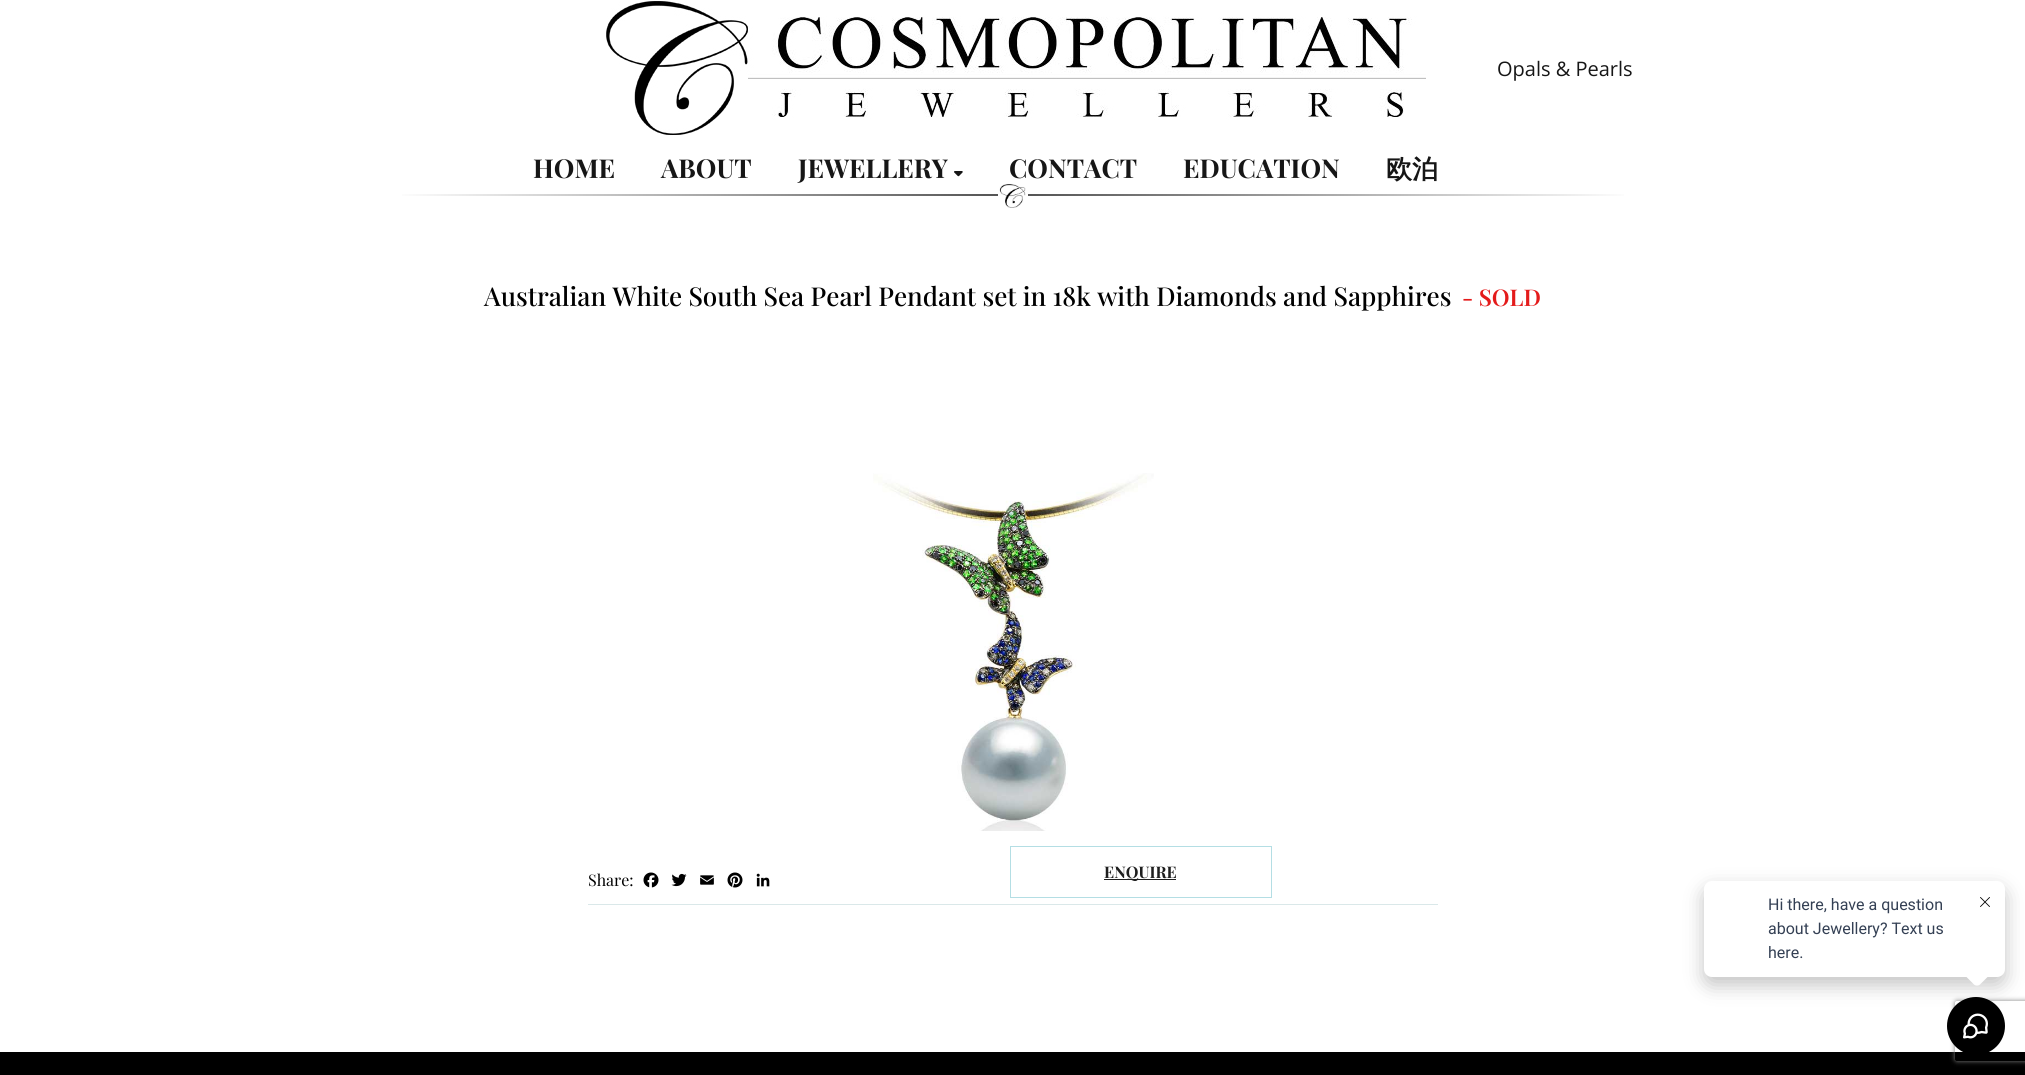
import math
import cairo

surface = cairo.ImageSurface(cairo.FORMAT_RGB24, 2025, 1075)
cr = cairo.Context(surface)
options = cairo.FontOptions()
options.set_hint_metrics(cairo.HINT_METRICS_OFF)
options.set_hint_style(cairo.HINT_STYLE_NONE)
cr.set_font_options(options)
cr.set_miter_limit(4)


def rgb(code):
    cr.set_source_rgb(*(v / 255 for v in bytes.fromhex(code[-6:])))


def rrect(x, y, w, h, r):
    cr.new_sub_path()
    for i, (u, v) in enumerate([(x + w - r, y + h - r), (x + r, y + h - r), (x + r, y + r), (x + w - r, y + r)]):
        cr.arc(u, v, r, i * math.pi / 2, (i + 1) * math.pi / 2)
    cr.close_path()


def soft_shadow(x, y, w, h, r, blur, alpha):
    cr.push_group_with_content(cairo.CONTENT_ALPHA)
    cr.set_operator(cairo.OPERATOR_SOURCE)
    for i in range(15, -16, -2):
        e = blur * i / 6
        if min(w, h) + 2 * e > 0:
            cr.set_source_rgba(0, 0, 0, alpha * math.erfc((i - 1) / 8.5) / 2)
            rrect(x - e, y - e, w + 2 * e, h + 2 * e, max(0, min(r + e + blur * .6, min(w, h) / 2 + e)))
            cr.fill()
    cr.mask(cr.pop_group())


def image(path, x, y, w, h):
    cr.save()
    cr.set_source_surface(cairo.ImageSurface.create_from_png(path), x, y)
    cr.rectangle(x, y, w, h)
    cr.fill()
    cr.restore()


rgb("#ffffff")
cr.paint()
image("img/1.png", 606, 1, 820, 134)
image("img/2.png", 954, 171, 9, 6)
gradient = cairo.LinearGradient(393, 195, 1633, 195)
gradient.add_color_stop_rgba(0, 1, 1, 1, 1)
gradient.add_color_stop_rgba(0.5, 0.314, 0.314, 0.314, 1)
gradient.add_color_stop_rgba(1, 1, 1, 1, 1)
cr.set_source(gradient)
cr.rectangle(402, 194, 1222, 2)
cr.fill()
rgb("#ffffff")
cr.rectangle(998, 194, 30, 2)
cr.fill()
image("img/3.png", 999, 184, 27, 24)
image("img/4.png", 873, 473, 281, 358)
rgb("#dae8e9")
cr.rectangle(588, 904, 850, 1)
cr.fill()
image("img/5.png", 643, 872, 16, 16)
image("img/6.png", 671, 873, 16, 14)
image("img/7.png", 700, 875, 14, 10)
image("img/8.png", 727, 872, 16, 16)
image("img/9.png", 756, 873, 14, 14)
cr.rectangle(1010.5, 846.5, 261, 51)
rgb("#b4dee4")
cr.set_line_width(1)
cr.stroke()
rgb("#1e1e1e")
cr.rectangle(1104, 879, 72, 1)
cr.fill()
rgb("#000000")
cr.rectangle(0, 1052, 2025, 23)
cr.fill()
cr.save()
cr.set_fill_rule(cairo.FILL_RULE_EVEN_ODD)
cr.new_path()
cr.move_to(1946, 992)
cr.line_to(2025, 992)
cr.line_to(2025, 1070)
cr.line_to(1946, 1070)
cr.close_path()
cr.move_to(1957, 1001)
cr.line_to(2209, 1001)
cr.curve_to(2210, 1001, 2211, 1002, 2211, 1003)
cr.line_to(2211, 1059)
cr.curve_to(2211, 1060, 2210, 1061, 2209, 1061)
cr.line_to(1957, 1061)
cr.curve_to(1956, 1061, 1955, 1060, 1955, 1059)
cr.line_to(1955, 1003)
cr.curve_to(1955, 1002, 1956, 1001, 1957, 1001)
cr.close_path()
cr.clip()
rgb("#808080")
soft_shadow(1955, 1001, 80, 60, 2, 2.5, 1)
cr.restore()
cr.arc(1976, 1026, 29, 0, 2 * math.pi)
cr.fill()
image("img/11.png", 1963, 1013, 25, 26)
rgb("#000000")
soft_shadow(1704, 889, 301, 96, 8, 10, 0.24)
rgb("#ffffff")
rrect(1704, 881, 301, 96, 8)
cr.fill()
cr.new_path()
cr.move_to(1980, 961.5)
cr.line_to(1988.5, 970)
cr.curve_to(1990, 971.5, 1990, 974.5, 1988.5, 976)
cr.line_to(1980, 984.5)
cr.curve_to(1978.5, 986, 1975.5, 986, 1974, 984.5)
cr.line_to(1965.5, 976)
cr.curve_to(1964, 974.5, 1964, 971.5, 1965.5, 970)
cr.line_to(1974, 961.5)
cr.curve_to(1975.5, 960, 1978.5, 960, 1980, 961.5)
cr.close_path()
cr.fill()
image("img/10.png", 1980, 897, 10, 10)
cr.select_font_face("Open Sans")
cr.set_font_size(20)
rgb("#161616")
cr.move_to(1497, 76)
cr.show_text("Opals & Pearls")
cr.select_font_face("Playfair Display", cairo.FONT_SLANT_NORMAL, cairo.FONT_WEIGHT_BOLD)
cr.set_font_size(26)
for x, y, s in [
    (533, 178, "HOME"),
    (661, 178, "ABOUT"),
    (798, 178, "JEWELLERY"),
    (1009, 178, "CONTACT"),
    (1183, 178, "EDUCATION"),
]:
    cr.move_to(x, y)
    cr.show_text(s)
cr.select_font_face("WenQuanYi Zen Hei", cairo.FONT_SLANT_NORMAL, cairo.FONT_WEIGHT_BOLD)
cr.move_to(1386, 178)
cr.show_text("欧泊")
cr.select_font_face("Playfair Display Medium")
rgb("#000000")
cr.move_to(484, 306)
cr.show_text("Australian White South Sea Pearl Pendant set in 18k with Diamonds and Sapphires")
cr.select_font_face("Playfair Display SemiBold")
cr.set_font_size(23)
rgb("#e41b1b")
cr.move_to(1462, 306)
cr.show_text("- SOLD")
cr.select_font_face("Playfair Display")
cr.set_font_size(16)
rgb("#000000")
cr.move_to(588, 886)
cr.show_text("Share:")
cr.select_font_face("Playfair Display", cairo.FONT_SLANT_NORMAL, cairo.FONT_WEIGHT_BOLD)
rgb("#1e1e1e")
cr.move_to(1104, 878)
cr.show_text("ENQUIRE")
cr.select_font_face("Roboto")
rgb("#344054")
for x, y, s in [
    (1768, 910, "Hi there, have a question"),
    (1768, 934, "about Jewellery? Text us"),
    (1768, 958, "here."),
]:
    cr.move_to(x, y)
    cr.show_text(s)
surface.write_to_png("page.png")
